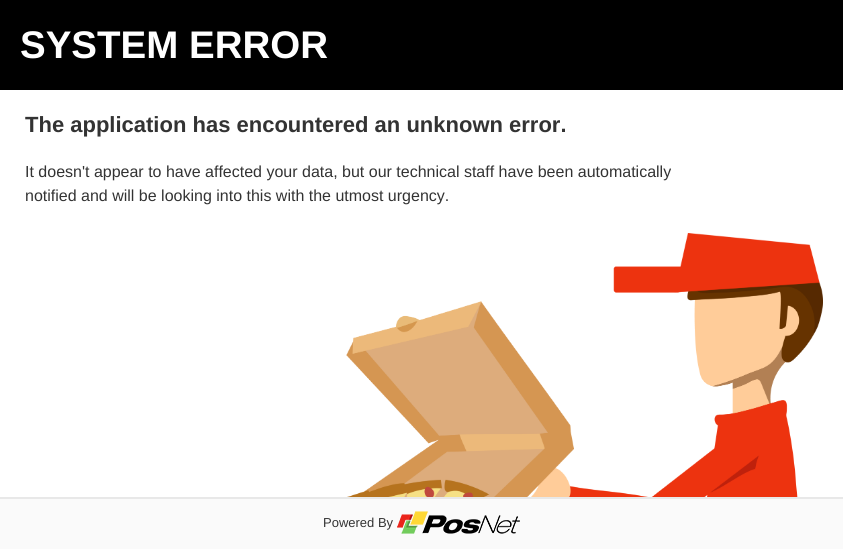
import math
import cairo

surface = cairo.ImageSurface(cairo.FORMAT_RGB24, 843, 549)
cr = cairo.Context(surface)
options = cairo.FontOptions()
options.set_hint_metrics(cairo.HINT_METRICS_OFF)
options.set_hint_style(cairo.HINT_STYLE_NONE)
cr.set_font_options(options)
cr.set_miter_limit(4)


def rgb(code):
    cr.set_source_rgb(*(v / 255 for v in bytes.fromhex(code[-6:])))


def image(path, x, y, w, h):
    cr.save()
    cr.set_source_surface(cairo.ImageSurface.create_from_png(path), x, y)
    cr.rectangle(x, y, w, h)
    cr.fill()
    cr.restore()


rgb("#ffffff")
cr.paint()
rgb("#000000")
cr.rectangle(0, 0, 843, 90)
cr.fill()
image("img/1.png", 346, 233, 477, 264)
rgb("#fafafa")
cr.rectangle(0, 499, 843, 50)
cr.fill()
rgb("#e8e8e8")
cr.rectangle(0, 497, 843, 2)
cr.fill()
image("img/2.png", 397, 511, 123, 23)
cr.select_font_face("Liberation Sans", cairo.FONT_SLANT_NORMAL, cairo.FONT_WEIGHT_BOLD)
cr.set_font_size(38.5)
rgb("#ffffff")
cr.move_to(20, 58)
cr.show_text("SYSTEM ERROR")
cr.set_font_size(22)
rgb("#333333")
cr.move_to(25, 132)
cr.show_text("The application has encountered an unknown error.")
cr.select_font_face("Liberation Sans")
cr.set_font_size(16)
cr.move_to(25, 177)
cr.show_text("It doesn't appear to have affected your data, but our technical staff have been automatically")
cr.move_to(25, 201)
cr.show_text("notified and will be looking into this with the utmost urgency.")
cr.set_font_size(13)
cr.move_to(323, 527)
cr.show_text("Powered By")
surface.write_to_png("page.png")
